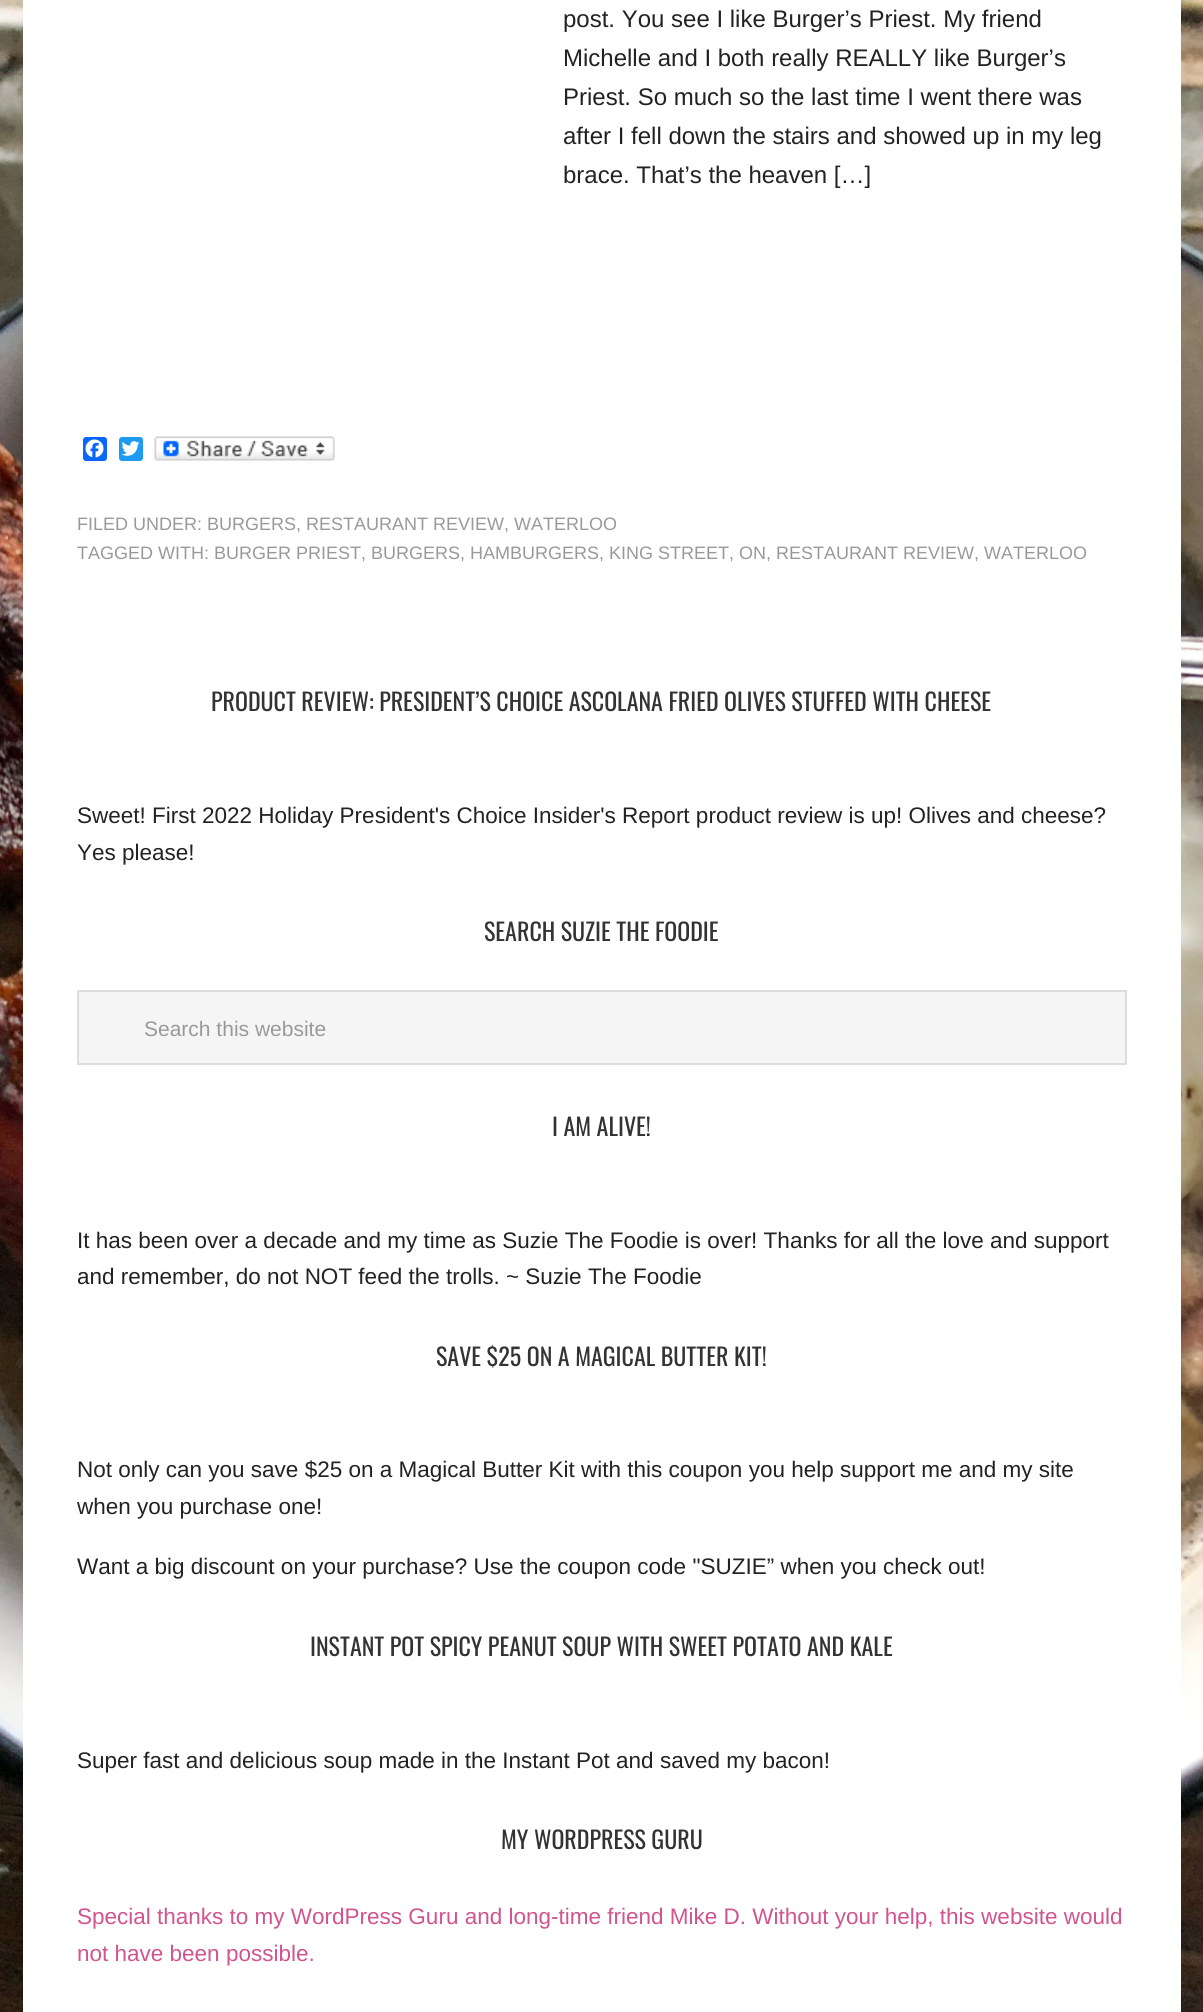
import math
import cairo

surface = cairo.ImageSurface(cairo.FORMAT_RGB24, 1203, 2012)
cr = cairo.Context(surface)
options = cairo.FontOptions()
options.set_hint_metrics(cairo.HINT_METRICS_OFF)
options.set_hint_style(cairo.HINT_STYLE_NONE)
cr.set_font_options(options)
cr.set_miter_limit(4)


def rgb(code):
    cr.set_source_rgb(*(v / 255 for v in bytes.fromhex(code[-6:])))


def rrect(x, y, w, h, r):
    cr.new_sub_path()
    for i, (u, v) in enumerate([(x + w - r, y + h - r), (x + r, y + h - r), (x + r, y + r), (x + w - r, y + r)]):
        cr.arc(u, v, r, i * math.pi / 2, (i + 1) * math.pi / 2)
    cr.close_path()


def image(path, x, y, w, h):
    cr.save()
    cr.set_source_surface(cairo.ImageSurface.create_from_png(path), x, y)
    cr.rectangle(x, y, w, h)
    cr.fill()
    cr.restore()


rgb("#ffffff")
cr.paint()
image("img/1.png", 0, 0, 1203, 2012)
rgb("#ffffff")
cr.rectangle(23, 0, 1158, 2012)
cr.fill()
rgb("#0866ff")
rrect(83, 437, 24, 24, 3)
cr.fill()
image("img/2.png", 85, 439, 19, 19)
rgb("#1d9bf0")
rrect(119, 437, 24, 24, 3)
cr.fill()
image("img/3.png", 121, 441, 19, 15)
image("img/4.png", 154, 436, 181, 25)
rgb("#f5f5f5")
cr.rectangle(78, 991, 1048, 73)
cr.fill_preserve()
rgb("#dddddd")
cr.stroke()
cr.select_font_face("Liberation Sans")
cr.set_font_size(24)
rgb("#222222")
for x, y, s in [
    (563, 27, "post. You see I like Burger’s Priest. My friend"),
    (563, 66, "Michelle and I both really REALLY like Burger’s"),
    (563, 105, "Priest. So much so the last time I went there was"),
    (563, 144, "after I fell down the stairs and showed up in my leg"),
    (563, 183, "brace. That’s the heaven […]"),
]:
    cr.move_to(x, y)
    cr.show_text(s)
cr.set_font_size(18)
rgb("#999999")
cr.move_to(77, 530)
cr.show_text("FILED UNDER: BURGERS, RESTAURANT REVIEW, WATERLOO")
cr.move_to(77, 559)
cr.show_text("TAGGED WITH: BURGER PRIEST, BURGERS, HAMBURGERS, KING STREET, ON, RESTAURANT REVIEW, WATERLOO")
cr.select_font_face("Oswald")
cr.set_font_size(24)
rgb("#333333")
cr.move_to(211, 711)
cr.show_text("PRODUCT REVIEW: PRESIDENT’S CHOICE ASCOLANA FRIED OLIVES STUFFED WITH CHEESE")
cr.select_font_face("Liberation Sans")
cr.set_font_size(22.5)
rgb("#222222")
cr.move_to(77, 823)
cr.show_text("Sweet! First 2022 Holiday President's Choice Insider's Report product review is up! Olives and cheese?")
cr.move_to(77, 860)
cr.show_text("Yes please!")
cr.select_font_face("Oswald")
cr.set_font_size(24)
rgb("#333333")
cr.move_to(484, 941)
cr.show_text("SEARCH SUZIE THE FOODIE")
cr.select_font_face("Liberation Sans")
cr.set_font_size(21)
rgb("#999999")
cr.move_to(144, 1036)
cr.show_text("Search this website")
cr.select_font_face("Oswald")
cr.set_font_size(24)
rgb("#333333")
cr.move_to(552, 1136)
cr.show_text("I AM ALIVE!")
cr.select_font_face("Liberation Sans")
cr.set_font_size(22.5)
rgb("#222222")
cr.move_to(77, 1248)
cr.show_text("It has been over a decade and my time as Suzie The Foodie is over! Thanks for all the love and support")
cr.move_to(77, 1284)
cr.show_text("and remember, do not NOT feed the trolls. ~ Suzie The Foodie")
cr.select_font_face("Oswald")
cr.set_font_size(24)
rgb("#333333")
cr.move_to(436, 1366)
cr.show_text("SAVE $25 ON A MAGICAL BUTTER KIT!")
cr.select_font_face("Liberation Sans")
cr.set_font_size(22.5)
rgb("#222222")
for x, y, s in [
    (77, 1477, "Not only can you save $25 on a Magical Butter Kit with this coupon you help support me and my site"),
    (77, 1514, "when you purchase one!"),
    (77, 1574, "Want a big discount on your purchase? Use the coupon code \"SUZIE” when you check out!"),
]:
    cr.move_to(x, y)
    cr.show_text(s)
cr.select_font_face("Oswald")
cr.set_font_size(24)
rgb("#333333")
cr.move_to(310, 1656)
cr.show_text("INSTANT POT SPICY PEANUT SOUP WITH SWEET POTATO AND KALE")
cr.select_font_face("Liberation Sans")
cr.set_font_size(22.5)
rgb("#222222")
cr.move_to(77, 1768)
cr.show_text("Super fast and delicious soup made in the Instant Pot and saved my bacon!")
cr.select_font_face("Oswald")
cr.set_font_size(24)
rgb("#333333")
cr.move_to(501, 1849)
cr.show_text("MY WORDPRESS GURU")
cr.select_font_face("Liberation Sans")
cr.set_font_size(22.5)
rgb("#d1548e")
cr.move_to(77, 1924)
cr.show_text("Special thanks to my WordPress Guru and long-time friend Mike D. Without your help, this website would")
cr.move_to(77, 1961)
cr.show_text("not have been possible.")
surface.write_to_png("page.png")
